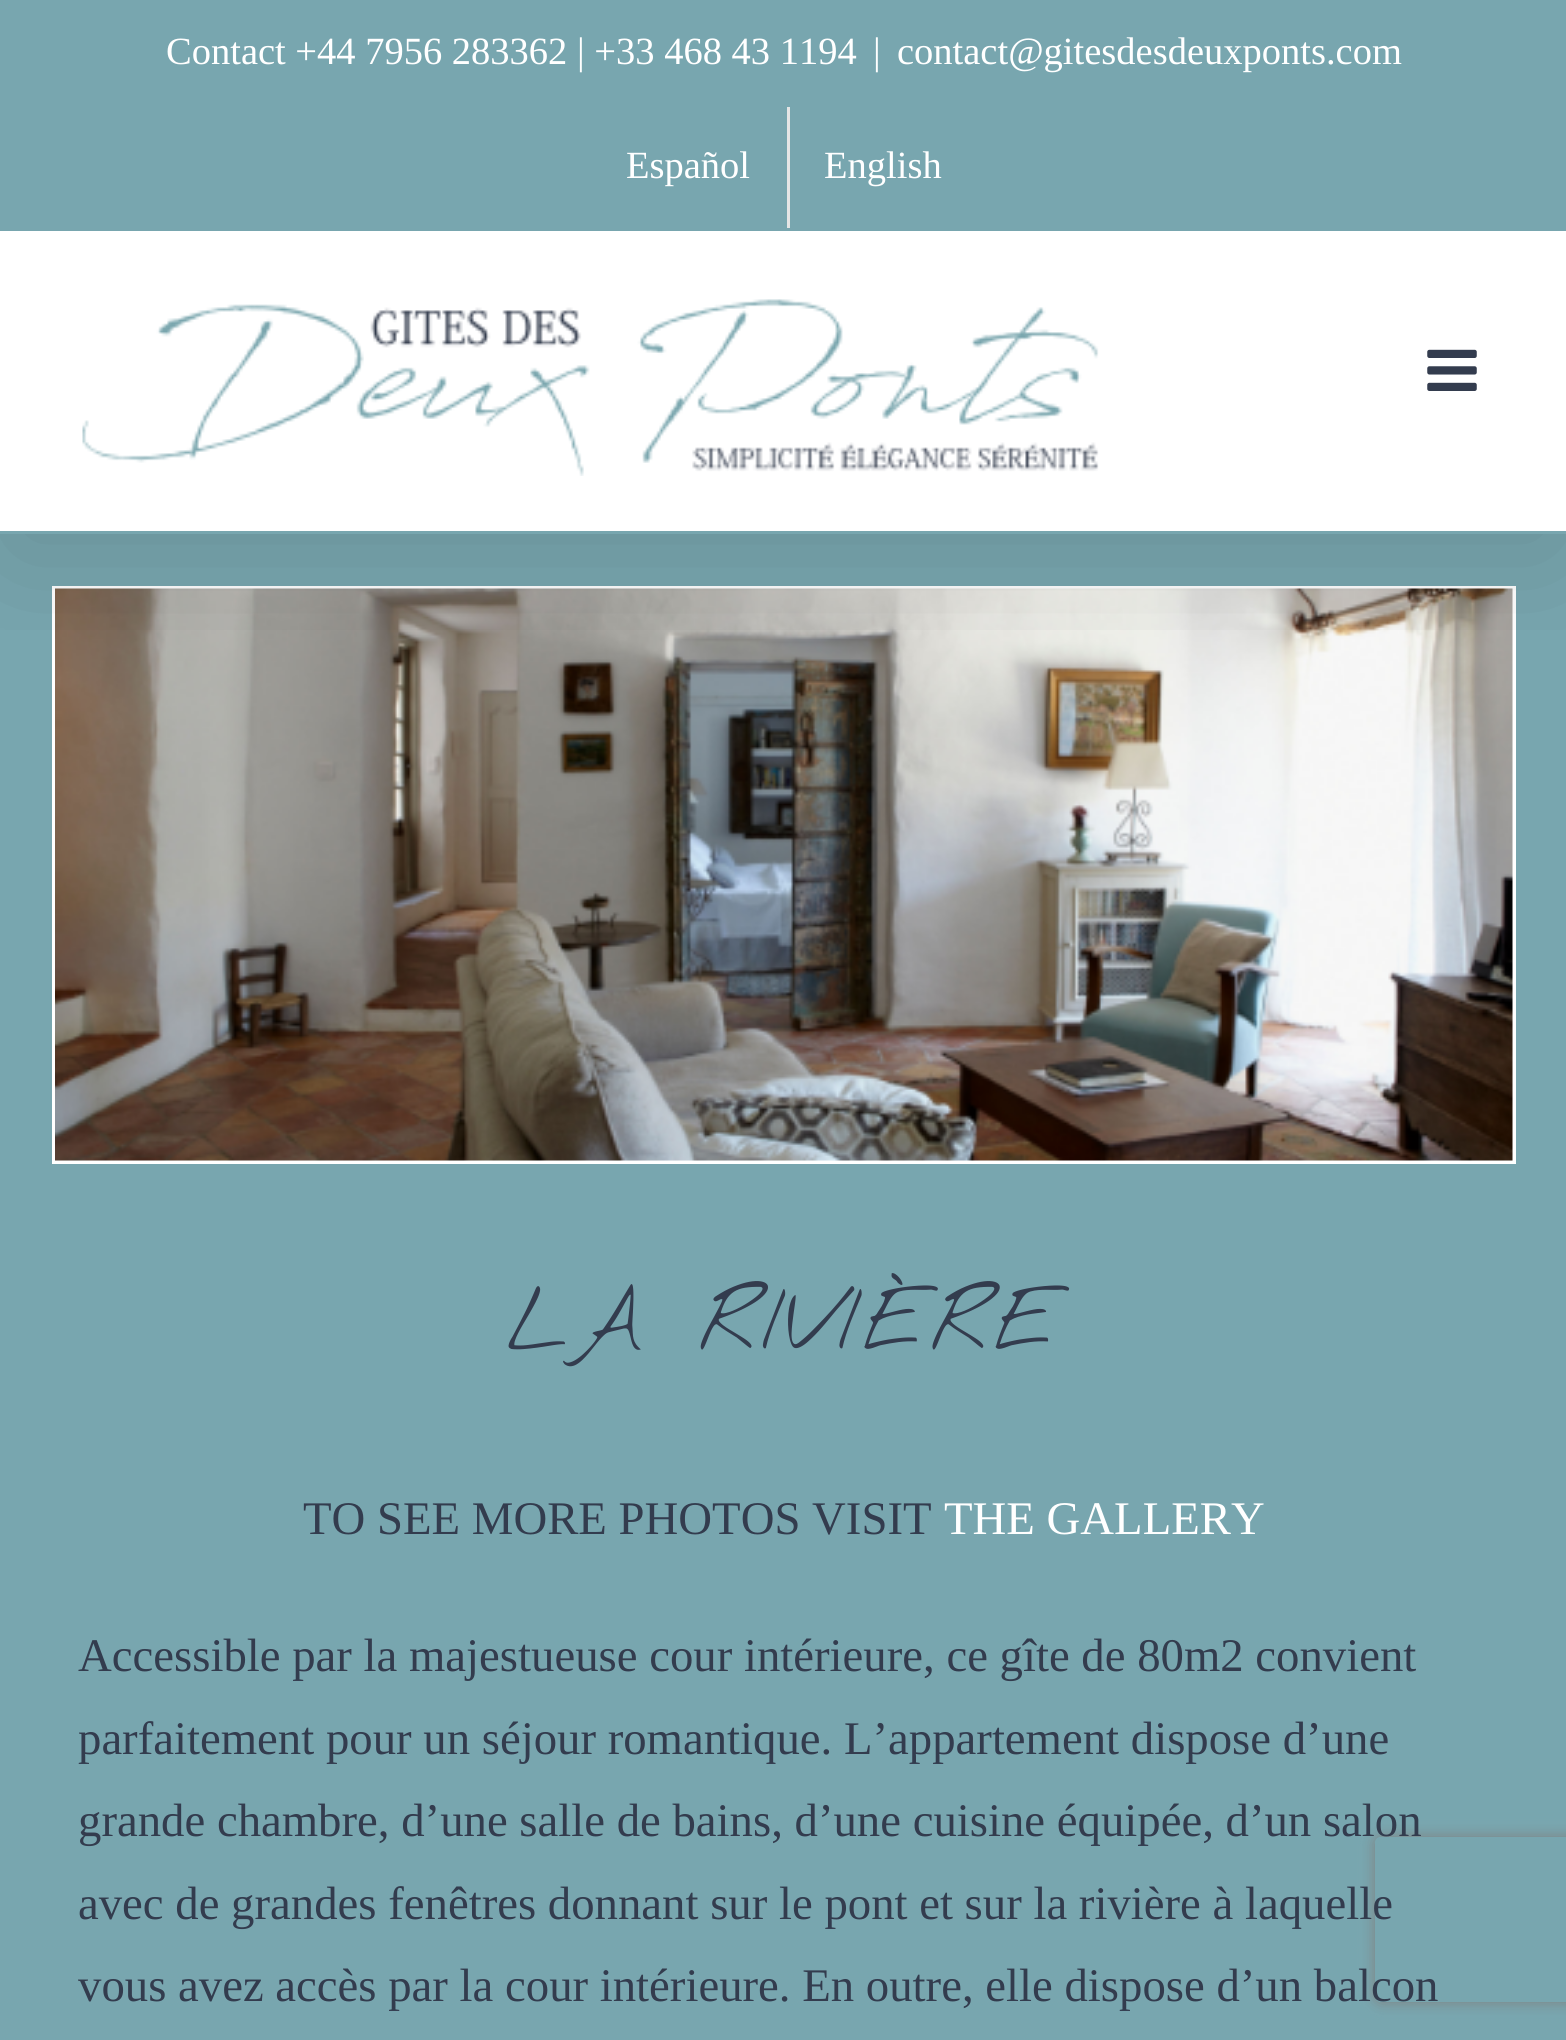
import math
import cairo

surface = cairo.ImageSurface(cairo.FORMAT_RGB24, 1566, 2040)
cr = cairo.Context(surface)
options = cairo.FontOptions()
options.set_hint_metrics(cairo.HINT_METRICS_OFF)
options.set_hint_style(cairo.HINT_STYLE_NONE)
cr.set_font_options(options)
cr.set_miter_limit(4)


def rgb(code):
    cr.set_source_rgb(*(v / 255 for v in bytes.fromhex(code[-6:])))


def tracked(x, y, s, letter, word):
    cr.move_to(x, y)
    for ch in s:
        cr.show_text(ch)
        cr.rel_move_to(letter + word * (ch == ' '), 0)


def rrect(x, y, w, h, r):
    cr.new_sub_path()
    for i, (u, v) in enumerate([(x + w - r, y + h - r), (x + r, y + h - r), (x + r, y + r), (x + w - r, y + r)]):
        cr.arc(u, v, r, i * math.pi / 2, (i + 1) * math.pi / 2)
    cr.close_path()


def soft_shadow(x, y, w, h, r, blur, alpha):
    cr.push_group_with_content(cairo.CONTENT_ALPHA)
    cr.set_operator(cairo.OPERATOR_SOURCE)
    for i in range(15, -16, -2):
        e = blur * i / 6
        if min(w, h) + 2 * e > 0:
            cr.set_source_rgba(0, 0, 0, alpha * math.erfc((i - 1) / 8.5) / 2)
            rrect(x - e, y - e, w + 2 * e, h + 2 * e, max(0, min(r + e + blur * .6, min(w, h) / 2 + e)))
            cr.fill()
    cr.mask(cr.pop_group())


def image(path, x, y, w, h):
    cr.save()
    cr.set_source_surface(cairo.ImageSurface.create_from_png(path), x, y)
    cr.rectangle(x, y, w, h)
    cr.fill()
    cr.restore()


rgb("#78a6af")
cr.paint()
rgb("#ffffff")
cr.rectangle(52, 586, 1464, 578)
cr.fill()
image("img/3.png", 55, 588, 1458, 573)
cr.save()
cr.rectangle(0, 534, 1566, 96)
cr.clip()
rgb("#000000")
soft_shadow(6, 33, 1556, 523, 0, 69, 0.14)
cr.restore()
for x, y, w, h, color in [
    (787, 107, 3, 121, "#e5e5e5"),
    (0, 231, 1566, 300, "#ffffff"),
    (0, 533, 1566, 1, "#78a6af"),
]:
    rgb(color)
    cr.rectangle(x, y, w, h)
    cr.fill()
image("img/1.png", 82, 299, 1017, 177)
image("img/2.png", 1427, 349, 50, 42)
cr.save()
cr.set_fill_rule(cairo.FILL_RULE_EVEN_ODD)
cr.new_path()
cr.move_to(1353, 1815)
cr.line_to(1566, 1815)
cr.line_to(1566, 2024)
cr.line_to(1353, 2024)
cr.close_path()
cr.move_to(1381, 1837)
cr.line_to(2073, 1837)
cr.curve_to(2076.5, 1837, 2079, 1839.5, 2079, 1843)
cr.line_to(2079, 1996)
cr.curve_to(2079, 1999.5, 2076.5, 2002, 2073, 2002)
cr.line_to(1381, 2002)
cr.curve_to(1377.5, 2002, 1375, 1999.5, 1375, 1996)
cr.line_to(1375, 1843)
cr.curve_to(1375, 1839.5, 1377.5, 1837, 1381, 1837)
cr.close_path()
cr.clip()
rgb("#808080")
soft_shadow(1375, 1837, 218, 165, 6, 7, 1)
cr.restore()
cr.select_font_face("Tinos")
cr.set_font_size(38.5)
rgb("#ffffff")
for x, y, s in [
    (166, 64, "Contact +44 7956 283362 | +33 468 43 1194"),
    (873, 64, "|"),
    (897, 64, "contact@gitesdesdeuxponts.com"),
    (626, 178, "Español"),
    (824, 178, "English"),
]:
    cr.move_to(x, y)
    cr.show_text(s)
cr.select_font_face("Nothing You Could Do Thin")
cr.set_font_size(86)
rgb("#333c4e")
tracked(507, 1349, "LA RIVIÈRE", 5.5, 0)
cr.select_font_face("Tinos")
cr.set_font_size(46.75)
cr.move_to(303, 1534)
cr.show_text("TO SEE MORE PHOTOS VISIT")
rgb("#ffffff")
cr.move_to(944, 1534)
cr.show_text("THE GALLERY")
rgb("#333c4e")
for x, y, s in [
    (78, 1671, "Accessible par la majestueuse cour intérieure, ce gîte de 80m2 convient"),
    (78, 1754, "parfaitement pour un séjour romantique. L’appartement dispose d’une"),
    (78, 1836, "grande chambre, d’une salle de bains, d’une cuisine équipée, d’un salon"),
    (78, 1919, "avec de grandes fenêtres donnant sur le pont et sur la rivière à laquelle"),
    (78, 2001, "vous avez accès par la cour intérieure. En outre, elle dispose d’un balcon"),
]:
    cr.move_to(x, y)
    cr.show_text(s)
surface.write_to_png("page.png")
